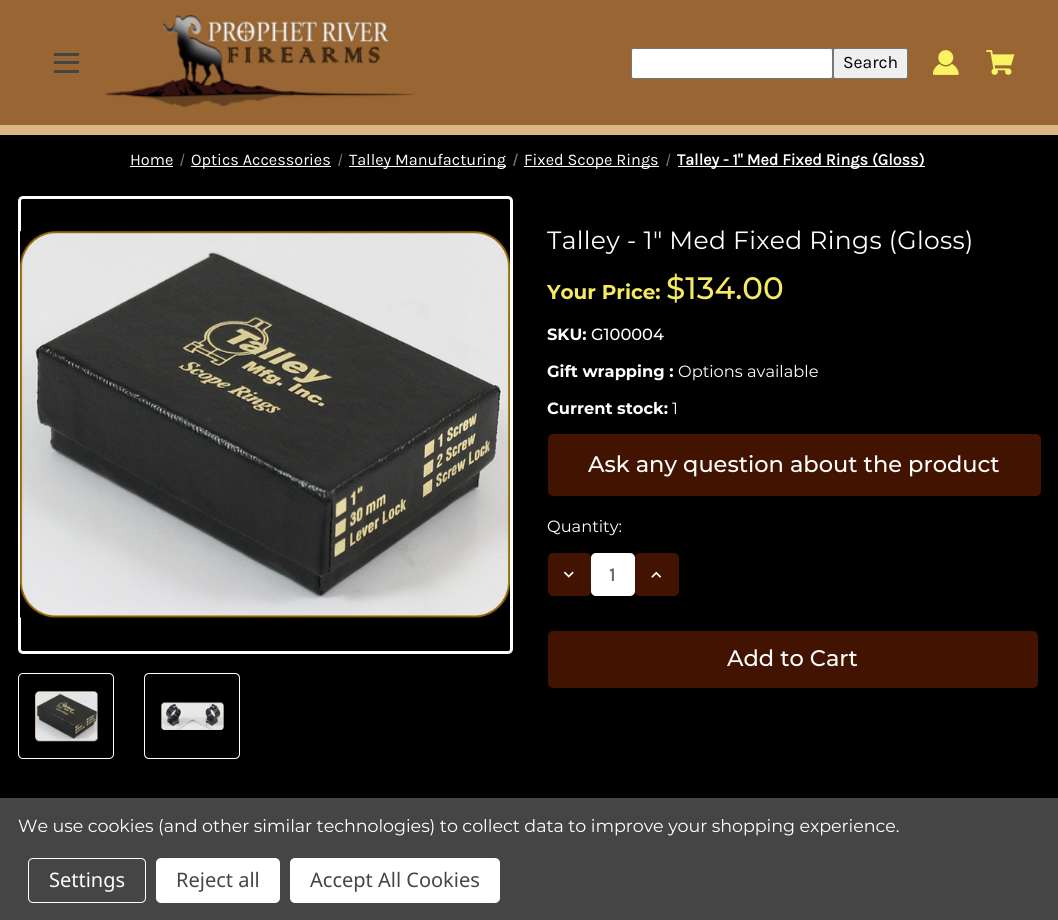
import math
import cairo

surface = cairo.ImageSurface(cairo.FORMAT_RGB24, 1058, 920)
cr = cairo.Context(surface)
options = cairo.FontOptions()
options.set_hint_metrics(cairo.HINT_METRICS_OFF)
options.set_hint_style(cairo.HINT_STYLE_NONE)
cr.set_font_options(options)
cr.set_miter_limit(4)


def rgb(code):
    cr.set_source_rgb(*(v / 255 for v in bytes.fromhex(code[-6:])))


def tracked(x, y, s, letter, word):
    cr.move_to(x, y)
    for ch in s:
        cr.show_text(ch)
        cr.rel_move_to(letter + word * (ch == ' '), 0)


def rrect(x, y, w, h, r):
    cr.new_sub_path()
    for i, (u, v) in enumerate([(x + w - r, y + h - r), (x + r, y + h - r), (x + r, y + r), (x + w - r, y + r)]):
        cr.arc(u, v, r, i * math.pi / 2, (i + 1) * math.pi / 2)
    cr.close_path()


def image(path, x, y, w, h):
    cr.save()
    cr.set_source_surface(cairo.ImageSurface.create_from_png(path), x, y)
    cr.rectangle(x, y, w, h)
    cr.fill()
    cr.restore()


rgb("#000000")
cr.paint()
for x, y, w, h, color in [
    (0, 0, 1058, 125, "#996633"),
    (0, 125, 1058, 10, "#dbb786"),
    (54, 61, 25, 3, "#444444"),
    (54, 53, 25, 3, "#444444"),
    (54, 70, 25, 3, "#444444"),
]:
    rgb(color)
    cr.rectangle(x, y, w, h)
    cr.fill()
image("img/1.png", 104, 14, 310, 94)
rgb("#ffffff")
rrect(631.5, 48.5, 201, 30, 2)
cr.fill_preserve()
rgb("#767676")
cr.set_line_width(1)
cr.stroke()
rgb("#efefef")
rrect(833.5, 48.5, 74, 30, 2)
cr.fill_preserve()
rgb("#767676")
cr.stroke()
image("img/2.png", 933, 50, 26, 25)
image("img/3.png", 986, 50, 29, 25)
rgb("#ffffff")
cr.rectangle(130, 166, 43, 1)
cr.fill()
rgb("#757575")
cr.new_path()
cr.move_to(183.5, 153.5)
cr.line_to(184.5, 153.5)
cr.line_to(181.5, 166)
cr.line_to(180, 166)
cr.close_path()
cr.fill()
rgb("#ffffff")
cr.rectangle(191, 166, 140, 1)
cr.fill()
rgb("#757575")
cr.new_path()
cr.move_to(341.5, 153.5)
cr.line_to(342.5, 153.5)
cr.line_to(339.5, 166)
cr.line_to(338, 166)
cr.close_path()
cr.fill()
rgb("#ffffff")
cr.rectangle(349, 166, 157, 1)
cr.fill()
rgb("#757575")
cr.new_path()
cr.move_to(516.5, 153.5)
cr.line_to(518, 153.5)
cr.line_to(514.5, 166)
cr.line_to(513, 166)
cr.close_path()
cr.fill()
rgb("#ffffff")
cr.rectangle(524, 166, 135, 1)
cr.fill()
rgb("#757575")
cr.new_path()
cr.move_to(669.5, 153.5)
cr.line_to(670.5, 153.5)
cr.line_to(667.5, 166)
cr.line_to(666, 166)
cr.close_path()
cr.fill()
rgb("#ffffff")
cr.rectangle(678, 166, 247, 1)
cr.fill()
rrect(19.5, 197.5, 492, 455, 3.5)
cr.set_line_width(3)
cr.stroke()
image("img/4.png", 20, 231, 490, 387)
rrect(18.5, 673.5, 95, 85, 4.5)
cr.set_line_width(1)
cr.stroke()
image("img/5.png", 35, 691, 63, 51)
rrect(144.5, 673.5, 95, 85, 4.5)
cr.stroke()
image("img/6.png", 161, 702, 63, 28)
rgb("#411300")
rrect(548.5, 434.5, 492, 61, 4.5)
cr.fill_preserve()
cr.stroke()
rrect(548.5, 553.5, 42, 42, 4.5)
cr.fill_preserve()
cr.stroke()
image("img/7.png", 563, 571, 11, 7)
rgb("#ffffff")
rrect(591, 553, 44, 43, 5)
cr.fill()
rgb("#411300")
rrect(635.5, 553.5, 43, 42, 4.5)
cr.fill_preserve()
cr.stroke()
image("img/8.png", 651, 571, 11, 7)
rrect(548.5, 631.5, 489, 56, 4.5)
cr.fill_preserve()
cr.stroke()
rgb("#454545")
cr.rectangle(0, 798, 1058, 122)
cr.fill()
rrect(28.5, 858.5, 117, 44, 4.5)
rgb("#ffffff")
cr.stroke()
rrect(156, 858, 124, 45, 5)
cr.fill()
rrect(290, 858, 210, 45, 5)
cr.fill()
cr.select_font_face("Karla")
cr.set_font_size(17.5)
rgb("#000000")
cr.move_to(843, 68)
cr.show_text("Search")
cr.set_font_size(16.25)
rgb("#ffffff")
for x, y, s in [
    (130, 165, "Home"),
    (191, 165, "Optics Accessories"),
    (349, 165, "Talley Manufacturing"),
    (524, 165, "Fixed Scope Rings"),
]:
    cr.move_to(x, y)
    cr.show_text(s)
cr.select_font_face("Karla", cairo.FONT_SLANT_NORMAL, cairo.FONT_WEIGHT_BOLD)
cr.move_to(677, 165)
cr.show_text("Talley - 1\" Med Fixed Rings (Gloss)")
cr.select_font_face("Montserrat")
cr.set_font_size(25)
tracked(547, 249, "Talley - 1\" Med Fixed Rings (Gloss)", 0.3, 0)
cr.select_font_face("Montserrat", cairo.FONT_SLANT_NORMAL, cairo.FONT_WEIGHT_BOLD)
cr.set_font_size(20)
rgb("#f6ea62")
cr.move_to(547, 299)
cr.show_text("Your Price:")
cr.select_font_face("Montserrat Medium")
cr.set_font_size(31)
cr.move_to(666, 299)
cr.show_text("$134.00")
cr.select_font_face("Montserrat", cairo.FONT_SLANT_NORMAL, cairo.FONT_WEIGHT_BOLD)
cr.set_font_size(16.25)
rgb("#ffffff")
cr.move_to(547, 340)
cr.show_text("SKU:")
cr.select_font_face("Montserrat Medium")
cr.move_to(591, 340)
cr.show_text("G100004")
cr.select_font_face("Montserrat", cairo.FONT_SLANT_NORMAL, cairo.FONT_WEIGHT_BOLD)
cr.move_to(547, 377)
cr.show_text("Gift wrapping :")
cr.select_font_face("Montserrat")
cr.move_to(678, 377)
cr.show_text("Options available")
cr.select_font_face("Montserrat", cairo.FONT_SLANT_NORMAL, cairo.FONT_WEIGHT_BOLD)
cr.move_to(547, 414)
cr.show_text("Current stock:")
cr.select_font_face("Montserrat")
cr.move_to(672, 414)
cr.show_text("1")
cr.select_font_face("Montserrat Medium")
cr.set_font_size(22.5)
cr.move_to(588, 472)
cr.show_text("Ask any question about the product")
cr.select_font_face("Montserrat")
cr.set_font_size(16.25)
cr.move_to(547, 532)
cr.show_text("Quantity:")
cr.select_font_face("Karla", cairo.FONT_SLANT_NORMAL, cairo.FONT_WEIGHT_BOLD)
cr.set_font_size(19)
rgb("#666666")
cr.move_to(609, 581)
cr.show_text("1")
cr.select_font_face("Montserrat Medium")
cr.set_font_size(22.5)
rgb("#ffffff")
cr.move_to(727, 666)
cr.show_text("Add to Cart")
cr.select_font_face("Montserrat")
cr.set_font_size(17.5)
tracked(18, 832, "We use cookies (and other similar technologies) to collect data to improve your shopping experience.", -0.05, 0)
cr.select_font_face("Noto Sans")
cr.set_font_size(20)
cr.move_to(49, 887)
cr.show_text("Settings")
rgb("#454545")
cr.move_to(176, 887)
cr.show_text("Reject all")
cr.move_to(310, 887)
cr.show_text("Accept All Cookies")
surface.write_to_png("page.png")
